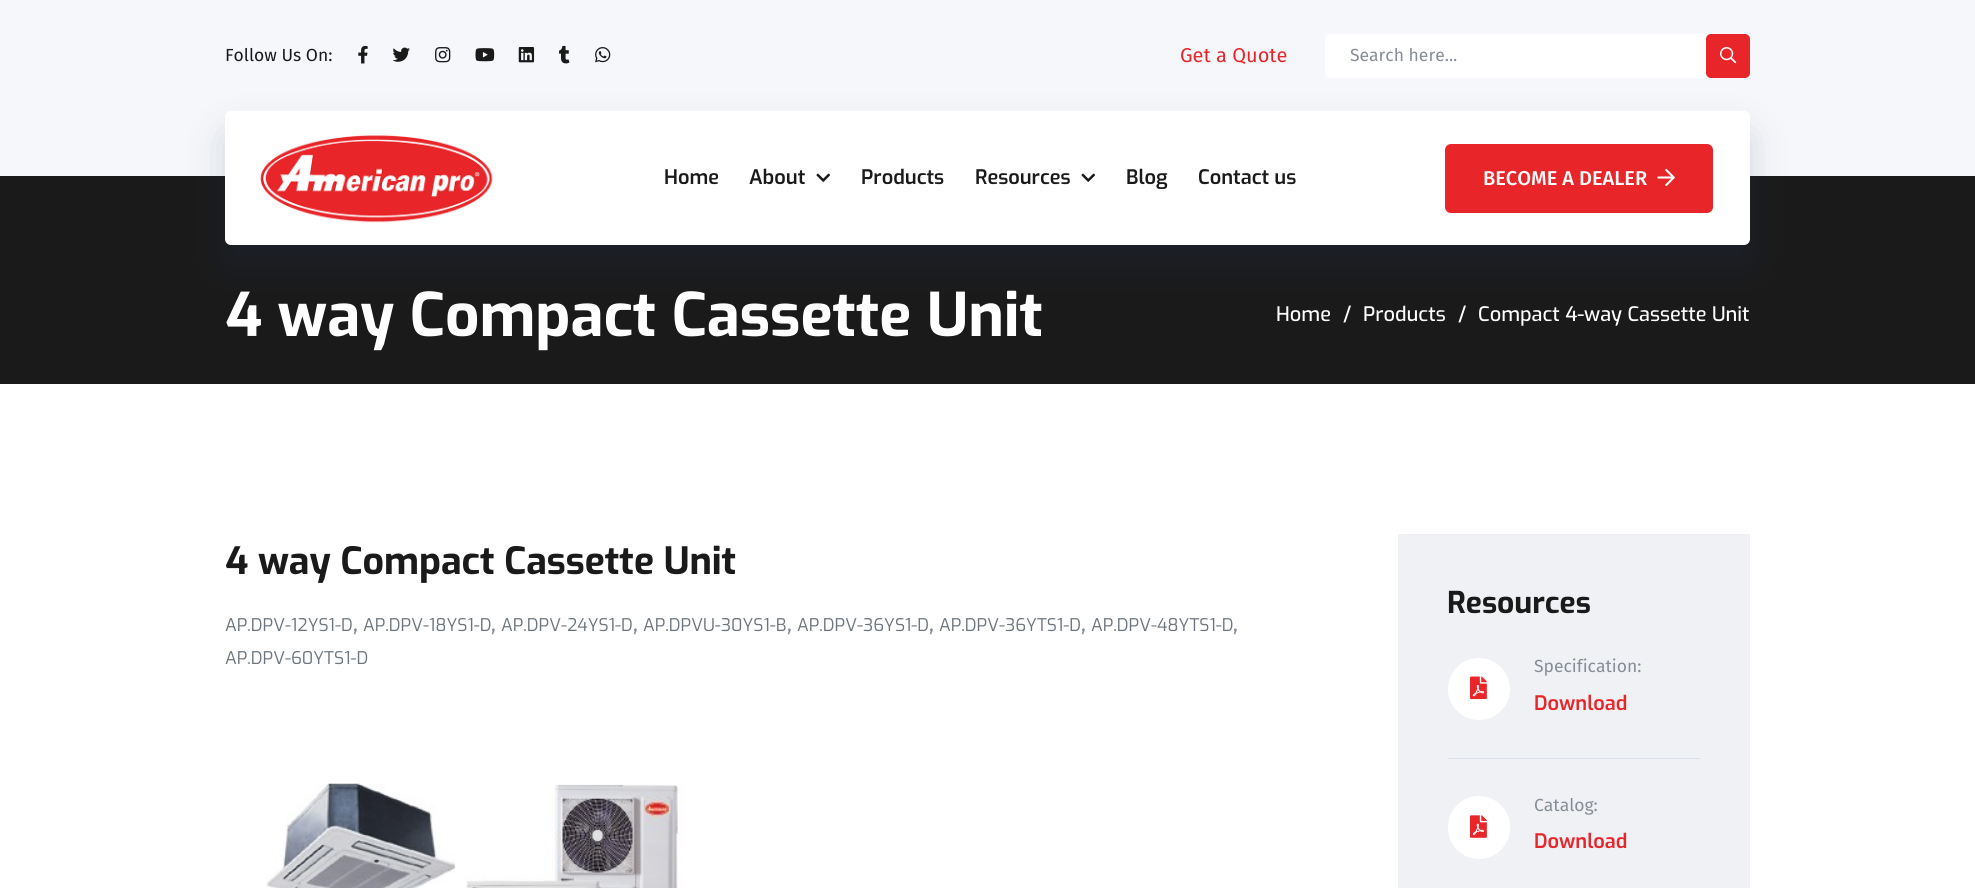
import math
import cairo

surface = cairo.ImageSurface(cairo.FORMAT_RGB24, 1975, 888)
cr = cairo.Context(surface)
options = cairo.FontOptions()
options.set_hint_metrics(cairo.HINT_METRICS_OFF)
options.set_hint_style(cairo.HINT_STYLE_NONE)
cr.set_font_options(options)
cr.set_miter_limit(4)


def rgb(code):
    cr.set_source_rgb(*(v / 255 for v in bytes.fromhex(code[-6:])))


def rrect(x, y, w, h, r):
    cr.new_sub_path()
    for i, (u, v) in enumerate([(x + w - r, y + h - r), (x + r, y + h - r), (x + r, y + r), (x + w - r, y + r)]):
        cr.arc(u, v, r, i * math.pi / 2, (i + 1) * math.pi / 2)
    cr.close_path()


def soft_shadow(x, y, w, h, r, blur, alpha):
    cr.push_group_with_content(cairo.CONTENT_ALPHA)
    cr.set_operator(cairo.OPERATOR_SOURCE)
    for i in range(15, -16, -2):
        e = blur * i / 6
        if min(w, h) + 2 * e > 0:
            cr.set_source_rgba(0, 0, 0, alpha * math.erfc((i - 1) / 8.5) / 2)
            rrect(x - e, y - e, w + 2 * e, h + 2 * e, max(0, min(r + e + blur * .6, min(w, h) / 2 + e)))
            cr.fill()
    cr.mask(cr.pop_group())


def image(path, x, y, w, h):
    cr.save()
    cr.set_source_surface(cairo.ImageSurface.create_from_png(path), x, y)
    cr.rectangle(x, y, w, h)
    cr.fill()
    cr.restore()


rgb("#ffffff")
cr.paint()
rgb("#f6f7fa")
cr.rectangle(0, 0, 1975, 176)
cr.fill()
image("img/1.png", 358, 45, 10, 19)
image("img/2.png", 392, 47, 18, 15)
image("img/3.png", 435, 47, 16, 16)
image("img/4.png", 475, 48, 20, 14)
image("img/5.png", 518, 47, 17, 16)
image("img/6.png", 559, 45, 11, 19)
image("img/7.png", 595, 47, 16, 16)
rgb("#ffffff")
rrect(1325, 34, 381, 44, 5)
cr.fill()
rgb("#e8262a")
rrect(1706, 34, 44, 44, 5)
cr.fill()
image("img/8.png", 1720, 47, 17, 17)
rgb("#1a1a1a")
cr.rectangle(0, 176, 1975, 208)
cr.fill()
rgb("#203869")
soft_shadow(225, 133, 1525, 133, 6, 18, 0.18)
rgb("#ffffff")
rrect(225, 111, 1525, 134, 6)
cr.fill()
image("img/9.png", 260, 135, 233, 88)
image("img/10.png", 816, 173, 14, 9)
image("img/10.png", 1081, 173, 14, 9)
rgb("#e8262a")
rrect(1445, 144, 268, 69, 6)
cr.fill()
image("img/11.png", 1657, 168, 18, 19)
image("img/12.png", 266, 783, 418, 105)
rgb("#eff1f5")
cr.rectangle(1398, 534, 352, 354)
cr.fill()
rgb("#dadfec")
cr.rectangle(1448, 758, 252, 1)
cr.fill()
rgb("#ffffff")
cr.arc(1479, 689, 31, 0, 2 * math.pi)
cr.fill()
image("img/13.png", 1470, 676, 17, 24)
rrect(1448, 796, 62, 63, 31)
cr.fill()
image("img/14.png", 1470, 815, 17, 23)
cr.select_font_face("Fira Sans")
cr.set_font_size(17.5)
rgb("#1a1a1a")
cr.move_to(225, 61)
cr.show_text("Follow Us On:")
cr.set_font_size(20)
rgb("#e8262a")
cr.move_to(1180, 62)
cr.show_text("Get a Quote")
cr.set_font_size(17.5)
rgb("#878d97")
cr.move_to(1350, 61)
cr.show_text("Search here...")
cr.select_font_face("Exo SemiBold")
cr.set_font_size(20)
rgb("#1a1a1a")
for x, y, s in [
    (664, 184, "Home"),
    (749, 184, "About"),
    (861, 184, "Products"),
    (975, 184, "Resources"),
    (1126, 184, "Blog"),
    (1198, 184, "Contact us"),
]:
    cr.move_to(x, y)
    cr.show_text(s)
cr.select_font_face("Fira Sans Medium")
rgb("#ffffff")
cr.move_to(1483, 185)
cr.show_text("BECOME A DEALER")
cr.select_font_face("Exo", cairo.FONT_SLANT_NORMAL, cairo.FONT_WEIGHT_BOLD)
cr.set_font_size(60)
cr.move_to(225, 336)
cr.show_text("4 way Compact Cassette Unit")
cr.select_font_face("Exo Medium")
cr.set_font_size(20)
for x, y, s in [
    (1276, 321, "Home"),
    (1343, 321, "/"),
    (1363, 321, "Products"),
    (1458, 321, "/"),
    (1478, 321, "Compact 4-way Cassette Unit"),
]:
    cr.move_to(x, y)
    cr.show_text(s)
cr.select_font_face("Exo", cairo.FONT_SLANT_NORMAL, cairo.FONT_WEIGHT_BOLD)
cr.set_font_size(37.5)
rgb("#1a1a1a")
cr.move_to(225, 574)
cr.show_text("4 way Compact Cassette Unit")
cr.select_font_face("Exo")
cr.set_font_size(17.5)
rgb("#6c757d")
cr.move_to(225, 631)
cr.show_text("AP.DPV-12YS1-D")
cr.select_font_face("Fira Sans")
cr.set_font_size(20)
rgb("#878d97")
cr.move_to(353, 631)
cr.show_text(",")
cr.select_font_face("Exo")
cr.set_font_size(17.5)
rgb("#6c757d")
cr.move_to(363, 631)
cr.show_text("AP.DPV-18YS1-D")
cr.select_font_face("Fira Sans")
cr.set_font_size(20)
rgb("#878d97")
cr.move_to(491, 631)
cr.show_text(",")
cr.select_font_face("Exo")
cr.set_font_size(17.5)
rgb("#6c757d")
cr.move_to(501, 631)
cr.show_text("AP.DPV-24YS1-D")
cr.select_font_face("Fira Sans")
cr.set_font_size(20)
rgb("#878d97")
cr.move_to(633, 631)
cr.show_text(",")
cr.select_font_face("Exo")
cr.set_font_size(17.5)
rgb("#6c757d")
cr.move_to(643, 631)
cr.show_text("AP.DPVU-30YS1-B")
cr.select_font_face("Fira Sans")
cr.set_font_size(20)
rgb("#878d97")
cr.move_to(787, 631)
cr.show_text(",")
cr.select_font_face("Exo")
cr.set_font_size(17.5)
rgb("#6c757d")
cr.move_to(797, 631)
cr.show_text("AP.DPV-36YS1-D")
cr.select_font_face("Fira Sans")
cr.set_font_size(20)
rgb("#878d97")
cr.move_to(929, 631)
cr.show_text(",")
cr.select_font_face("Exo")
cr.set_font_size(17.5)
rgb("#6c757d")
cr.move_to(939, 631)
cr.show_text("AP.DPV-36YTS1-D")
cr.select_font_face("Fira Sans")
cr.set_font_size(20)
rgb("#878d97")
cr.move_to(1081, 631)
cr.show_text(",")
cr.select_font_face("Exo")
cr.set_font_size(17.5)
rgb("#6c757d")
cr.move_to(1091, 631)
cr.show_text("AP.DPV-48YTS1-D")
cr.select_font_face("Fira Sans")
cr.set_font_size(20)
rgb("#878d97")
cr.move_to(1233, 631)
cr.show_text(",")
cr.select_font_face("Exo")
cr.set_font_size(17.5)
rgb("#6c757d")
cr.move_to(225, 664)
cr.show_text("AP.DPV-60YTS1-D")
cr.select_font_face("Exo", cairo.FONT_SLANT_NORMAL, cairo.FONT_WEIGHT_BOLD)
cr.set_font_size(30)
rgb("#1a1a1a")
cr.move_to(1447, 613)
cr.show_text("Resources")
cr.select_font_face("Fira Sans")
cr.set_font_size(17.5)
rgb("#878d97")
cr.move_to(1534, 672)
cr.show_text("Specification:")
cr.select_font_face("Exo SemiBold")
cr.set_font_size(20)
rgb("#e8262a")
cr.move_to(1534, 710)
cr.show_text("Download")
cr.select_font_face("Fira Sans")
cr.set_font_size(17.5)
rgb("#878d97")
cr.move_to(1534, 811)
cr.show_text("Catalog:")
cr.select_font_face("Exo SemiBold")
cr.set_font_size(20)
rgb("#e8262a")
cr.move_to(1534, 848)
cr.show_text("Download")
surface.write_to_png("page.png")
